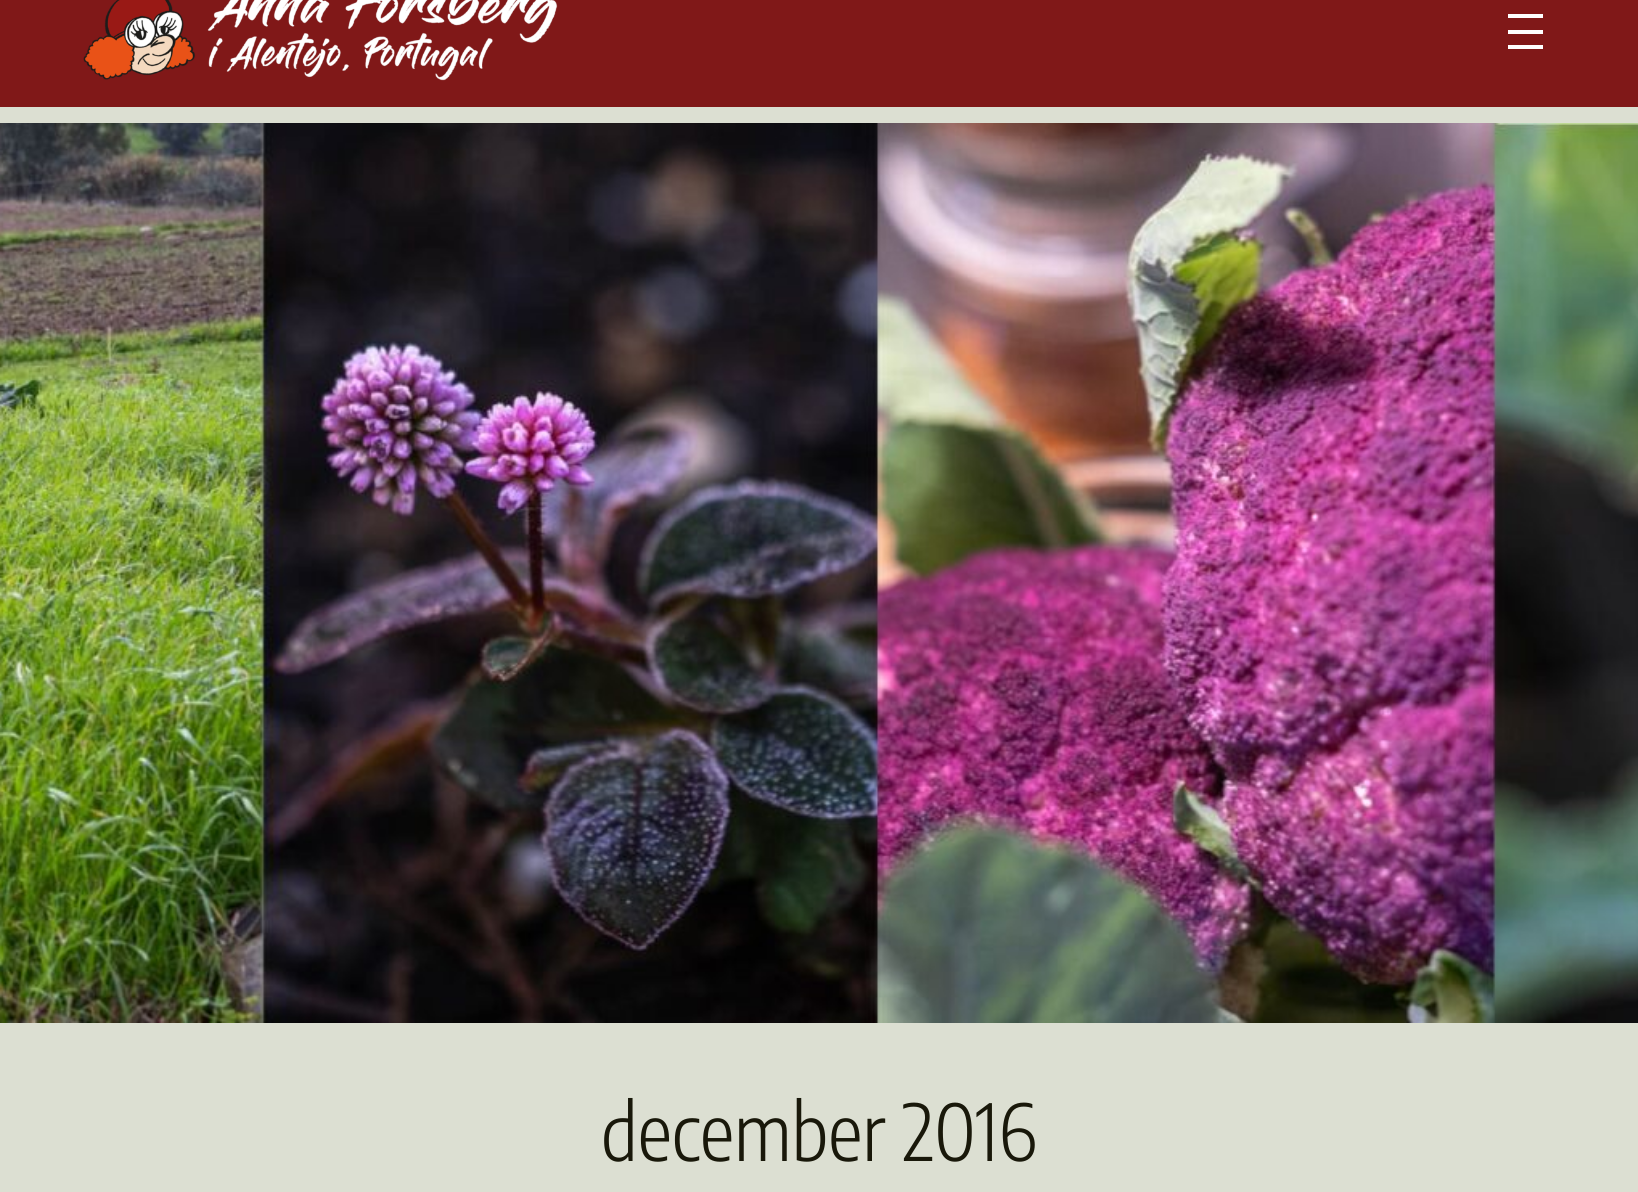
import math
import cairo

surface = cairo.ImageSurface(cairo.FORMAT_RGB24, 1638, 1192)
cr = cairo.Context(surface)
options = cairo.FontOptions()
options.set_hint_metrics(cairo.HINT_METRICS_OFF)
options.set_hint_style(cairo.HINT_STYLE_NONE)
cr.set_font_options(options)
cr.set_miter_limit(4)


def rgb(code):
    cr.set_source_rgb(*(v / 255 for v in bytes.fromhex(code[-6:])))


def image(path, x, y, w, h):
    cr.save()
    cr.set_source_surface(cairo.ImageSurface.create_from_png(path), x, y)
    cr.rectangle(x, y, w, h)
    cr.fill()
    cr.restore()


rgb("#dcdfd2")
cr.paint()
rgb("#801818")
cr.rectangle(0, 0, 1638, 107)
cr.fill()
image("img/1.png", 83, 0, 475, 81)
for x, y, w, h, color in [
    (1508, 14, 35, 4, "#ffffff"),
    (1508, 30, 35, 4, "#ffffff"),
    (1508, 45, 35, 4, "#ffffff"),
]:
    rgb(color)
    cr.rectangle(x, y, w, h)
    cr.fill()
image("img/2.png", 0, 123, 1638, 900)
cr.select_font_face("Encode Sans Condensed Light")
cr.set_font_size(78)
rgb("#19180a")
cr.move_to(601, 1161)
cr.show_text("december 2016")
surface.write_to_png("page.png")
